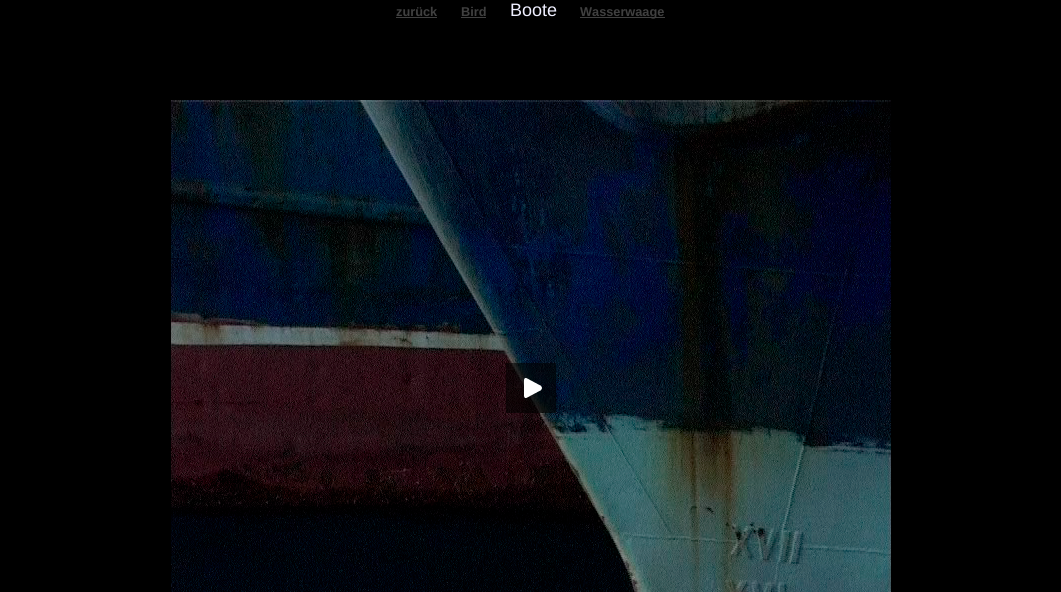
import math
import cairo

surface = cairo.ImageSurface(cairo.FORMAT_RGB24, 1061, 592)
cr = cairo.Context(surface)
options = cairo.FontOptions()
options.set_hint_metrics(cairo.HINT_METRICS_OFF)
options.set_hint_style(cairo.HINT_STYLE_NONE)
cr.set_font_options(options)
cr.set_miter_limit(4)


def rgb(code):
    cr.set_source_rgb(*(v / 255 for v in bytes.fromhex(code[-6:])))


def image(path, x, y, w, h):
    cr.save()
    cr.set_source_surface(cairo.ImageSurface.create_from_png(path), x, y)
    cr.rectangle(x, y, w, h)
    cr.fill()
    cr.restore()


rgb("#000000")
cr.paint()
for x, y, w, h, color in [
    (396, 17, 41, 1, "#404040"),
    (461, 17, 25, 1, "#404040"),
    (580, 17, 85, 1, "#404040"),
]:
    rgb(color)
    cr.rectangle(x, y, w, h)
    cr.fill()
image("img/1.png", 171, 100, 720, 492)
image("img/2.png", 506, 363, 50, 50)
image("img/3.png", 524, 378, 18, 20)
cr.select_font_face("Liberation Sans", cairo.FONT_SLANT_NORMAL, cairo.FONT_WEIGHT_BOLD)
cr.set_font_size(12.75)
cr.move_to(396, 16)
cr.show_text("zurück")
cr.move_to(461, 16)
cr.show_text("Bird")
cr.select_font_face("Liberation Sans")
cr.set_font_size(18)
rgb("#efefff")
cr.move_to(510, 16)
cr.show_text("Boote")
cr.select_font_face("Liberation Sans", cairo.FONT_SLANT_NORMAL, cairo.FONT_WEIGHT_BOLD)
cr.set_font_size(12.75)
rgb("#404040")
cr.move_to(580, 16)
cr.show_text("Wasserwaage")
surface.write_to_png("page.png")
